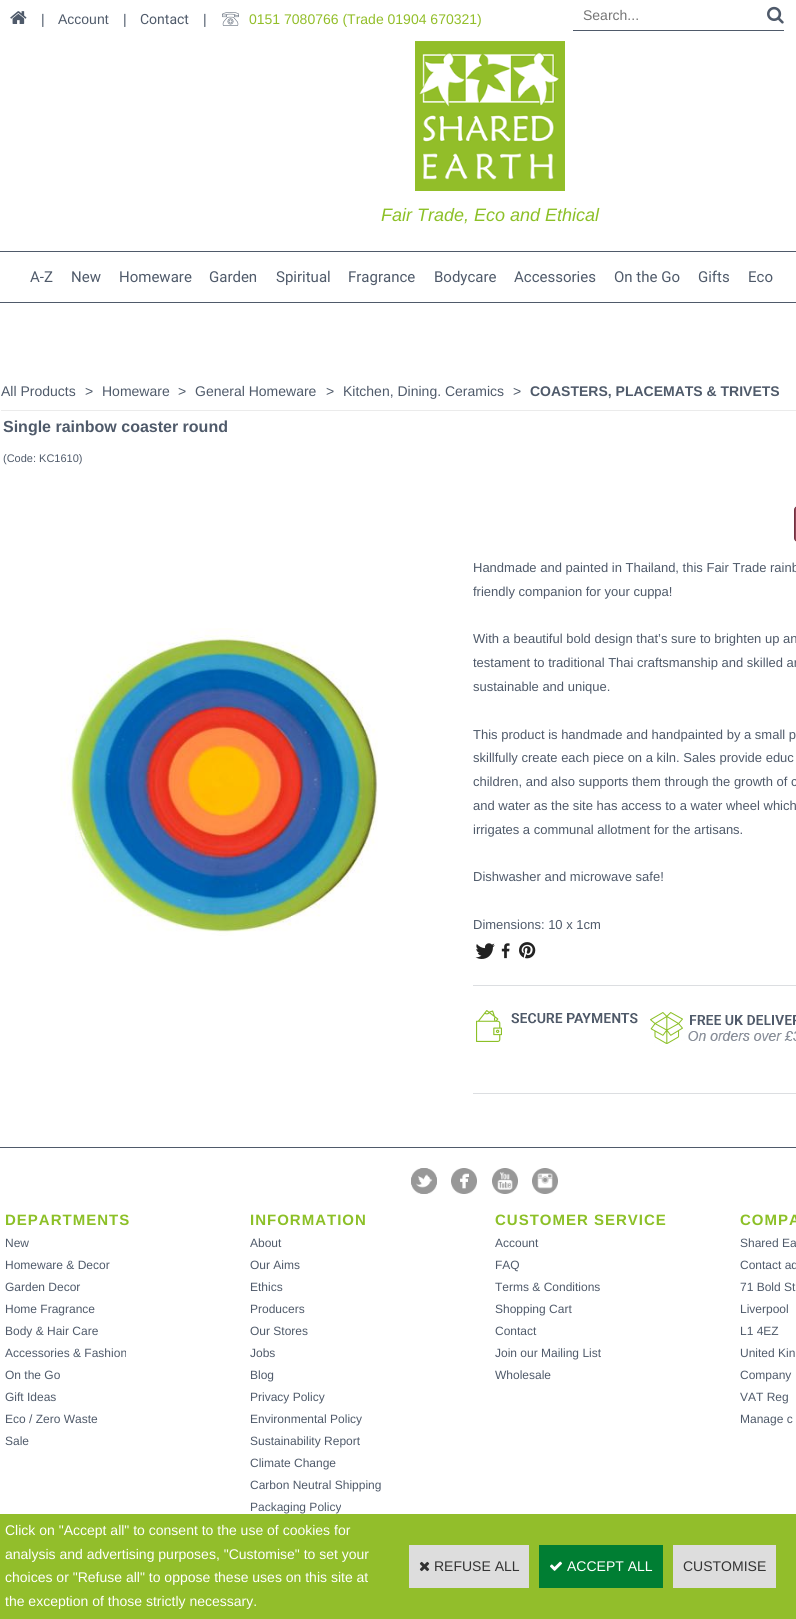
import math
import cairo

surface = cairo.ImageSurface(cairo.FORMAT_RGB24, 796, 1619)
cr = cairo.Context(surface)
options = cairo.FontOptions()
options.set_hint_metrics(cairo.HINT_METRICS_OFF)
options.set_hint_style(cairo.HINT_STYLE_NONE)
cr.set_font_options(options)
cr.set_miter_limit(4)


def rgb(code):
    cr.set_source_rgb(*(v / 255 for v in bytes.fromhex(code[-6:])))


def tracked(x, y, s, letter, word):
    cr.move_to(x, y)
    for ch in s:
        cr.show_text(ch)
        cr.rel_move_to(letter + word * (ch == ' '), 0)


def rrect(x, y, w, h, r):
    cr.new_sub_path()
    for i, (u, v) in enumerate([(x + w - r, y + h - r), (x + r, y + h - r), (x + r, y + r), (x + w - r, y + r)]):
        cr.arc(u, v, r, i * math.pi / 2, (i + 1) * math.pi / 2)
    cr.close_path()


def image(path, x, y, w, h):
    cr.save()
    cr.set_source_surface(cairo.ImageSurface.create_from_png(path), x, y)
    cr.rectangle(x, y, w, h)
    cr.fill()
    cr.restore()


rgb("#ffffff")
cr.paint()
image("img/1.png", 10, 11, 17, 13)
image("img/2.png", 222, 12, 17, 14)
rgb("#4f5a6a")
cr.rectangle(573, 30, 211, 1)
cr.fill()
image("img/3.png", 767, 6, 17, 18)
image("img/4.png", 415, 41, 150, 150)
for x, y, w, h, color in [
    (0, 251, 796, 1, "#4f5a6a"),
    (0, 302, 796, 1, "#4f5a6a"),
    (1, 410, 795, 1, "#ebebeb"),
]:
    rgb(color)
    cr.rectangle(x, y, w, h)
    cr.fill()
rgb("#8b4757")
rrect(794.5, 506.5, 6, 35, 3.5)
cr.fill_preserve()
rgb("#733040")
cr.set_line_width(1)
cr.stroke()
image("img/5.png", 60, 628, 318, 308)
image("img/6.png", 475, 943, 20, 16)
image("img/7.png", 501, 943, 9, 16)
image("img/8.png", 519, 942, 17, 17)
rgb("#dcdee1")
cr.rectangle(473, 985, 323, 1)
cr.fill()
cr.rectangle(473, 1093, 323, 1)
cr.fill()
image("img/9.png", 476, 1010, 162, 32)
image("img/10.png", 650, 1012, 146, 35)
rgb("#4f5a6a")
cr.rectangle(0, 1147, 796, 1)
cr.fill()
image("img/11.png", 411, 1168, 26, 26)
image("img/12.png", 451, 1168, 26, 26)
image("img/13.png", 492, 1168, 26, 26)
image("img/14.png", 532, 1168, 26, 26)
rgb("#92be2b")
cr.rectangle(0, 1514, 796, 105)
cr.fill()
rgb("#dddddd")
cr.rectangle(409, 1545, 120, 43)
cr.fill()
image("img/15.png", 419, 1561, 11, 11)
rgb("#007e33")
cr.rectangle(539, 1545, 124, 43)
cr.fill()
image("img/16.png", 550, 1561, 12, 10)
rgb("#dddddd")
cr.rectangle(673, 1545, 103, 43)
cr.fill()
cr.select_font_face("Liberation Sans")
cr.set_font_size(14)
rgb("#4f5a6a")
for x, y, s in [
    (41, 24, "|"),
    (58, 24, "Account"),
    (123, 24, "|"),
]:
    cr.move_to(x, y)
    cr.show_text(s)
cr.select_font_face("Roboto")
cr.move_to(140, 24)
cr.show_text("Contact")
cr.select_font_face("Liberation Sans")
cr.move_to(203, 24)
cr.show_text("|")
rgb("#92be29")
cr.move_to(249, 24)
cr.show_text("0151 7080766 (Trade 01904 670321)")
rgb("#757575")
cr.move_to(583, 20)
cr.show_text("Search...")
cr.select_font_face("Liberation Sans", cairo.FONT_SLANT_ITALIC)
cr.set_font_size(18)
rgb("#8cc027")
cr.move_to(381, 221)
cr.show_text("Fair Trade, Eco and Ethical")
cr.select_font_face("Roboto")
cr.set_font_size(15)
rgb("#4f5a6a")
for x, y, s in [
    (30, 282, "A-Z"),
    (71, 282, "New"),
    (119, 282, "Homeware"),
    (209, 282, "Garden"),
    (276, 282, "Spiritual"),
    (348, 282, "Fragrance"),
    (434, 282, "Bodycare"),
    (514, 282, "Accessories"),
    (614, 282, "On the Go"),
    (698, 282, "Gifts"),
    (748, 282, "Eco"),
]:
    cr.move_to(x, y)
    cr.show_text(s)
cr.select_font_face("Liberation Sans")
cr.set_font_size(14)
for x, y, s in [
    (1, 396, "All Products"),
    (85, 396, ">"),
    (102, 396, "Homeware"),
    (178, 396, ">"),
    (195, 396, "General Homeware"),
    (326, 396, ">"),
    (343, 396, "Kitchen, Dining. Ceramics"),
    (513, 396, ">"),
]:
    cr.move_to(x, y)
    cr.show_text(s)
cr.select_font_face("Liberation Sans", cairo.FONT_SLANT_NORMAL, cairo.FONT_WEIGHT_BOLD)
cr.move_to(530, 396)
cr.show_text("COASTERS, PLACEMATS & TRIVETS")
cr.set_font_size(16)
cr.move_to(3, 432)
cr.show_text("Single rainbow coaster round")
cr.select_font_face("Liberation Sans")
cr.set_font_size(11)
cr.move_to(3, 462)
cr.show_text("(Code: KC1610)")
cr.set_font_size(13)
for x, y, s in [
    (473, 572, "Handmade and painted in Thailand, this Fair Trade rainb"),
    (473, 596, "friendly companion for your cuppa!"),
    (473, 643, "With a beautiful bold design that’s sure to brighten up an"),
    (473, 667, "testament to traditional Thai craftsmanship and skilled ar"),
    (473, 691, "sustainable and unique."),
    (473, 739, "This product is handmade and handpainted by a small p"),
    (473, 762, "skillfully create each piece on a kiln. Sales provide educ"),
    (473, 786, "children, and also supports them through the growth of c"),
    (473, 810, "and water as the site has access to a water wheel which"),
    (473, 834, "irrigates a communal allotment for the artisans."),
    (473, 881, "Dishwasher and microwave safe!"),
    (473, 929, "Dimensions: 10 x 1cm"),
]:
    cr.move_to(x, y)
    cr.show_text(s)
cr.select_font_face("Liberation Sans", cairo.FONT_SLANT_NORMAL, cairo.FONT_WEIGHT_BOLD)
cr.set_font_size(15)
rgb("#8cc027")
tracked(5, 1225, "DEPARTMENTS", 1, 0)
cr.select_font_face("Liberation Sans")
cr.set_font_size(12)
rgb("#4f5a6a")
for x, y, s in [
    (5, 1247, "New"),
    (5, 1269, "Homeware & Decor"),
    (5, 1291, "Garden Decor"),
    (5, 1313, "Home Fragrance"),
    (5, 1335, "Body & Hair Care"),
    (5, 1357, "Accessories & Fashion"),
    (5, 1379, "On the Go"),
    (5, 1401, "Gift Ideas"),
    (5, 1423, "Eco / Zero Waste"),
    (5, 1445, "Sale"),
]:
    cr.move_to(x, y)
    cr.show_text(s)
cr.select_font_face("Liberation Sans", cairo.FONT_SLANT_NORMAL, cairo.FONT_WEIGHT_BOLD)
cr.set_font_size(15)
rgb("#8cc027")
tracked(250, 1225, "INFORMATION", 1, 0)
cr.select_font_face("Liberation Sans")
cr.set_font_size(12)
rgb("#4f5a6a")
for x, y, s in [
    (250, 1247, "About"),
    (250, 1269, "Our Aims"),
    (250, 1291, "Ethics"),
    (250, 1313, "Producers"),
    (250, 1335, "Our Stores"),
    (250, 1357, "Jobs"),
    (250, 1379, "Blog"),
    (250, 1401, "Privacy Policy"),
    (250, 1423, "Environmental Policy"),
    (250, 1445, "Sustainability Report"),
    (250, 1467, "Climate Change"),
    (250, 1489, "Carbon Neutral Shipping"),
    (250, 1511, "Packaging Policy"),
]:
    cr.move_to(x, y)
    cr.show_text(s)
cr.select_font_face("Liberation Sans", cairo.FONT_SLANT_NORMAL, cairo.FONT_WEIGHT_BOLD)
cr.set_font_size(15)
rgb("#8cc027")
tracked(495, 1225, "CUSTOMER SERVICE", 1, 0)
cr.select_font_face("Liberation Sans")
cr.set_font_size(12)
rgb("#4f5a6a")
for x, y, s in [
    (495, 1247, "Account"),
    (495, 1269, "FAQ"),
    (495, 1291, "Terms & Conditions"),
    (495, 1313, "Shopping Cart"),
    (495, 1335, "Contact"),
    (495, 1357, "Join our Mailing List"),
    (495, 1379, "Wholesale"),
]:
    cr.move_to(x, y)
    cr.show_text(s)
cr.select_font_face("Liberation Sans", cairo.FONT_SLANT_NORMAL, cairo.FONT_WEIGHT_BOLD)
cr.set_font_size(15)
rgb("#8cc027")
tracked(740, 1225, "COMPA", 1, 0)
cr.select_font_face("Liberation Sans")
cr.set_font_size(12)
rgb("#4f5a6a")
for x, y, s in [
    (740, 1247, "Shared Ea"),
    (740, 1269, "Contact ad"),
    (740, 1291, "71 Bold St"),
    (740, 1313, "Liverpool"),
    (740, 1335, "L1 4EZ"),
    (740, 1357, "United Kin"),
    (740, 1379, "Company"),
    (740, 1401, "VAT Reg"),
    (740, 1423, "Manage c"),
]:
    cr.move_to(x, y)
    cr.show_text(s)
cr.set_font_size(14)
rgb("#ffffff")
for x, y, s in [
    (5, 1535, "Click on \"Accept all\" to consent to the use of cookies for"),
    (5, 1559, "analysis and advertising purposes, \"Customise\" to set your"),
    (5, 1582, "choices or \"Refuse all\" to oppose these uses on this site at"),
    (5, 1606, "the exception of those strictly necessary."),
]:
    cr.move_to(x, y)
    cr.show_text(s)
rgb("#333333")
cr.move_to(434, 1571)
cr.show_text("REFUSE ALL")
rgb("#ffffff")
cr.move_to(567, 1571)
cr.show_text("ACCEPT ALL")
rgb("#333333")
cr.move_to(683, 1571)
cr.show_text("CUSTOMISE")
surface.write_to_png("page.png")
